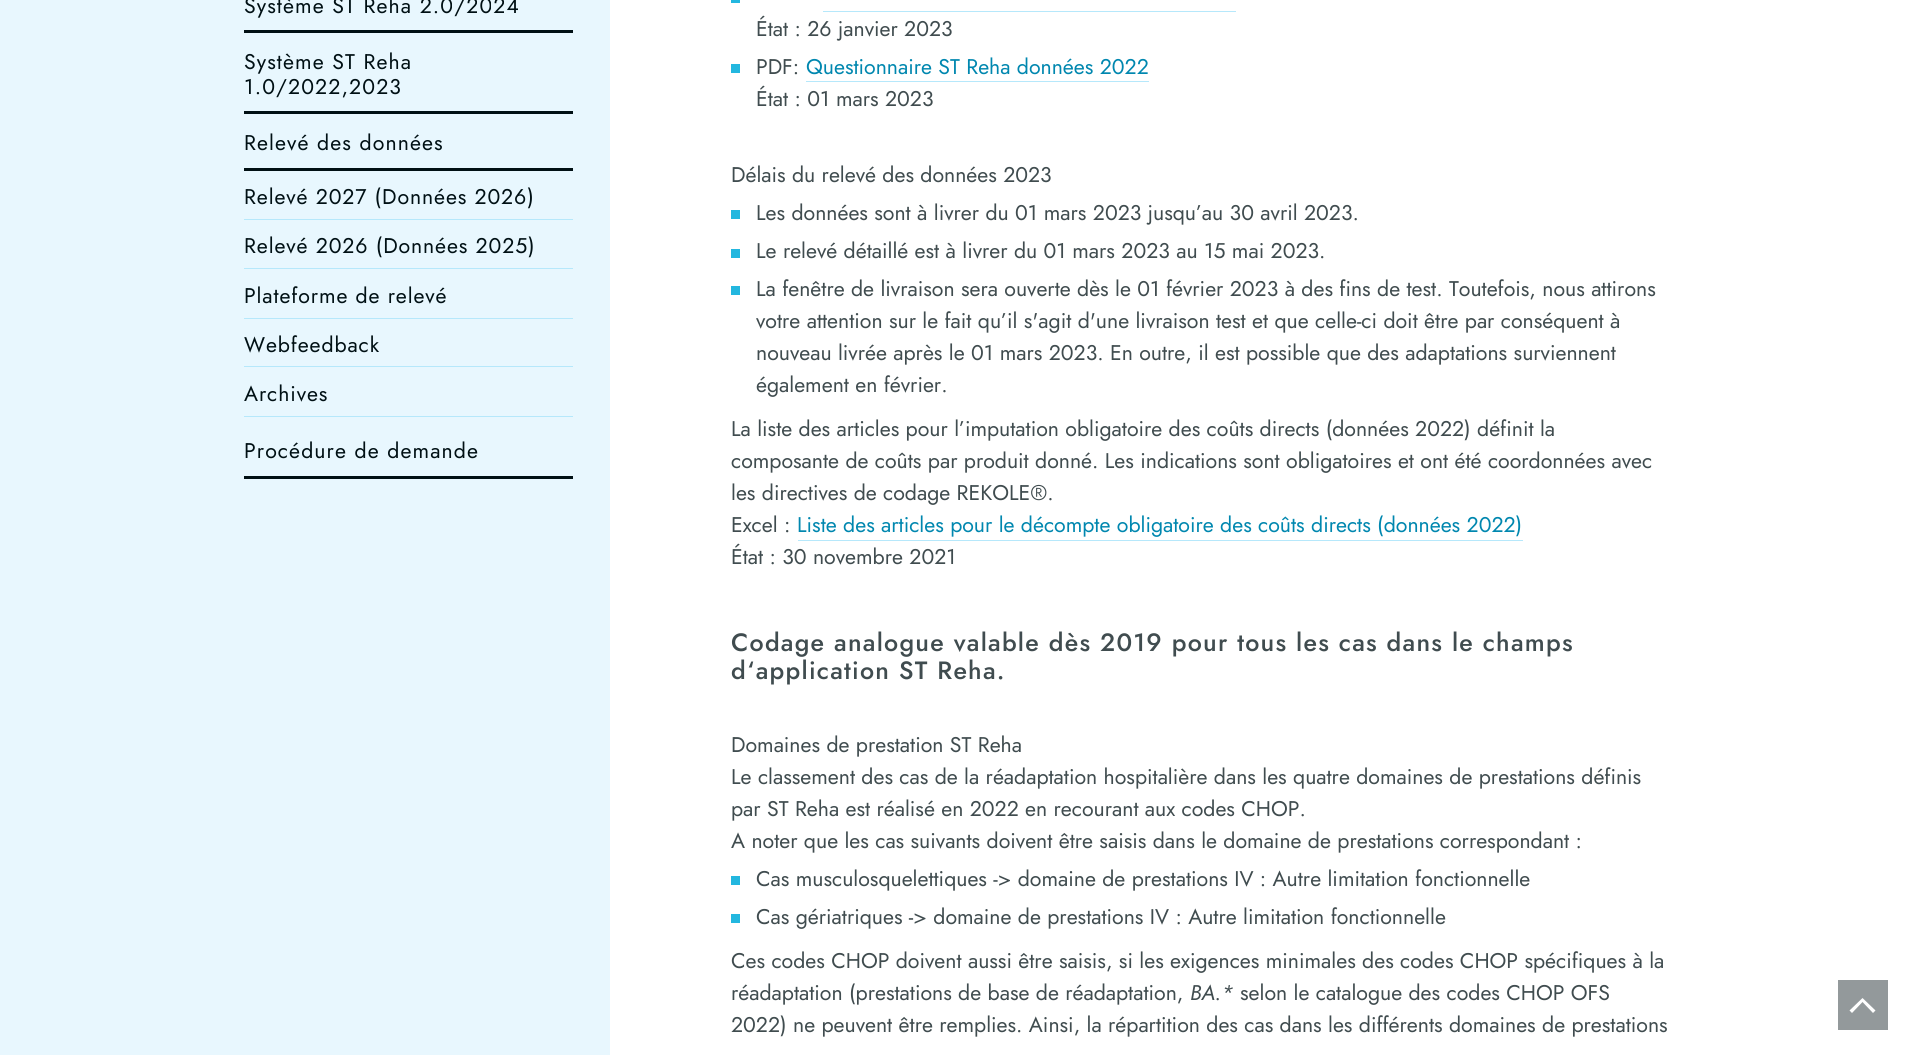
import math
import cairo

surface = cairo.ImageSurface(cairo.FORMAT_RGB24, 1912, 1055)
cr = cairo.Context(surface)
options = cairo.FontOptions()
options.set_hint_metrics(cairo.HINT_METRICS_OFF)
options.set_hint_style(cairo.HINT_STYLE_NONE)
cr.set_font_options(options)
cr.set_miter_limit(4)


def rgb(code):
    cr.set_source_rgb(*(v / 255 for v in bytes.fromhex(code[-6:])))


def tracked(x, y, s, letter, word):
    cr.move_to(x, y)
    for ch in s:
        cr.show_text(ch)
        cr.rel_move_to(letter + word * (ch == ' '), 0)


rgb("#ffffff")
cr.paint()
for x, y, w, h, color in [
    (0, 0, 610, 1055, "#e8f7fe"),
    (244, 30, 329, 3, "#001014"),
    (244, 111, 329, 3, "#001014"),
    (244, 168, 329, 3, "#001014"),
    (244, 219, 329, 1, "#b6e8fb"),
    (244, 268, 329, 1, "#b6e8fb"),
    (244, 318, 329, 1, "#b6e8fb"),
    (244, 366, 329, 1, "#b6e8fb"),
    (244, 416, 329, 1, "#b6e8fb"),
    (244, 476, 329, 3, "#001014"),
    (731, 0, 9, 3, "#23b7df"),
    (823, 11, 413, 1, "#b6e8fb"),
    (731, 64, 9, 9, "#23b7df"),
    (806, 81, 343, 1, "#b6e8fb"),
    (731, 210, 9, 9, "#23b7df"),
    (731, 249, 9, 9, "#23b7df"),
    (731, 286, 9, 9, "#23b7df"),
    (798, 540, 725, 1, "#b6e8fb"),
    (731, 876, 9, 9, "#23b7df"),
    (731, 914, 9, 9, "#23b7df"),
    (1838, 980, 50, 50, "#93999b"),
]:
    rgb(color)
    cr.rectangle(x, y, w, h)
    cr.fill()
rgb("#ffffff")
cr.new_path()
cr.move_to(1875.5, 1010.5)
cr.line_to(1873, 1013)
cr.line_to(1862.5, 1002)
cr.line_to(1852, 1013)
cr.line_to(1849.5, 1010.5)
cr.line_to(1862.5, 998)
cr.close_path()
cr.fill()
cr.select_font_face("Jost")
cr.set_font_size(21.25)
rgb("#001014")
for x, y, s in [
    (244, 13, "Système ST Reha 2.0/2024"),
    (244, 69, "Système ST Reha"),
    (244, 94, "1.0/2022,2023"),
    (244, 150, "Relevé des données"),
]:
    tracked(x, y, s, 1.1, 0)
for x, y, s in [
    (244, 204, "Relevé 2027 (Données 2026)"),
    (244, 253, "Relevé 2026 (Données 2025)"),
    (244, 303, "Plateforme de relevé"),
    (244, 352, "Webfeedback"),
    (244, 401, "Archives"),
]:
    tracked(x, y, s, 0.9, 0)
tracked(244, 458, "Procédure de demande", 1.1, 0)
rgb("#404c4f")
cr.move_to(756, 36)
cr.show_text("État : 26 janvier 2023")
cr.move_to(756, 74)
cr.show_text("PDF:")
rgb("#0087af")
cr.move_to(806, 74)
cr.show_text("Questionnaire ST Reha données 2022")
rgb("#404c4f")
for x, y, s in [
    (756, 106, "État : 01 mars 2023"),
    (731, 182, "Délais du relevé des données 2023"),
    (756, 220, "Les données sont à livrer du 01 mars 2023 jusqu’au 30 avril 2023."),
    (756, 258, "Le relevé détaillé est à livrer du 01 mars 2023 au 15 mai 2023."),
    (756, 296, "La fenêtre de livraison sera ouverte dès le 01 février 2023 à des fins de test. Toutefois, nous attirons"),
    (756, 328, "votre attention sur le fait qu’il s'agit d'une livraison test et que celle-ci doit être par conséquent à"),
    (756, 360, "nouveau livrée après le 01 mars 2023. En outre, il est possible que des adaptations surviennent"),
    (756, 392, "également en février."),
    (731, 436, "La liste des articles pour l’imputation obligatoire des coûts directs (données 2022) définit la"),
    (731, 468, "composante de coûts par produit donné. Les indications sont obligatoires et ont été coordonnées avec"),
    (731, 500, "les directives de codage REKOLE®."),
    (731, 532, "Excel :"),
]:
    cr.move_to(x, y)
    cr.show_text(s)
rgb("#0087af")
cr.move_to(797, 532)
cr.show_text("Liste des articles pour le décompte obligatoire des coûts directs (données 2022)")
rgb("#404c4f")
cr.move_to(731, 564)
cr.show_text("État : 30 novembre 2021")
cr.select_font_face("Jost Medium")
cr.set_font_size(25)
tracked(731, 651, "Codage analogue valable dès 2019 pour tous les cas dans le champs", 1.25, 0)
tracked(731, 679, "d‘application ST Reha.", 1.25, 0)
cr.select_font_face("Jost")
cr.set_font_size(21.25)
for x, y, s in [
    (731, 752, "Domaines de prestation ST Reha"),
    (731, 784, "Le classement des cas de la réadaptation hospitalière dans les quatre domaines de prestations définis"),
    (731, 816, "par ST Reha est réalisé en 2022 en recourant aux codes CHOP."),
    (731, 848, "A noter que les cas suivants doivent être saisis dans le domaine de prestations correspondant :"),
    (756, 886, "Cas musculosquelettiques -> domaine de prestations IV : Autre limitation fonctionnelle"),
    (756, 924, "Cas gériatriques -> domaine de prestations IV : Autre limitation fonctionnelle"),
    (731, 968, "Ces codes CHOP doivent aussi être saisis, si les exigences minimales des codes CHOP spécifiques à la"),
    (731, 1000, "réadaptation (prestations de base de réadaptation,"),
]:
    cr.move_to(x, y)
    cr.show_text(s)
cr.select_font_face("Jost", cairo.FONT_SLANT_ITALIC)
cr.move_to(1190, 1000)
cr.show_text("BA.*")
cr.select_font_face("Jost")
cr.move_to(1240, 1000)
cr.show_text("selon le catalogue des codes CHOP OFS")
cr.move_to(731, 1032)
cr.show_text("2022) ne peuvent être remplies. Ainsi, la répartition des cas dans les différents domaines de prestations")
surface.write_to_png("page.png")
